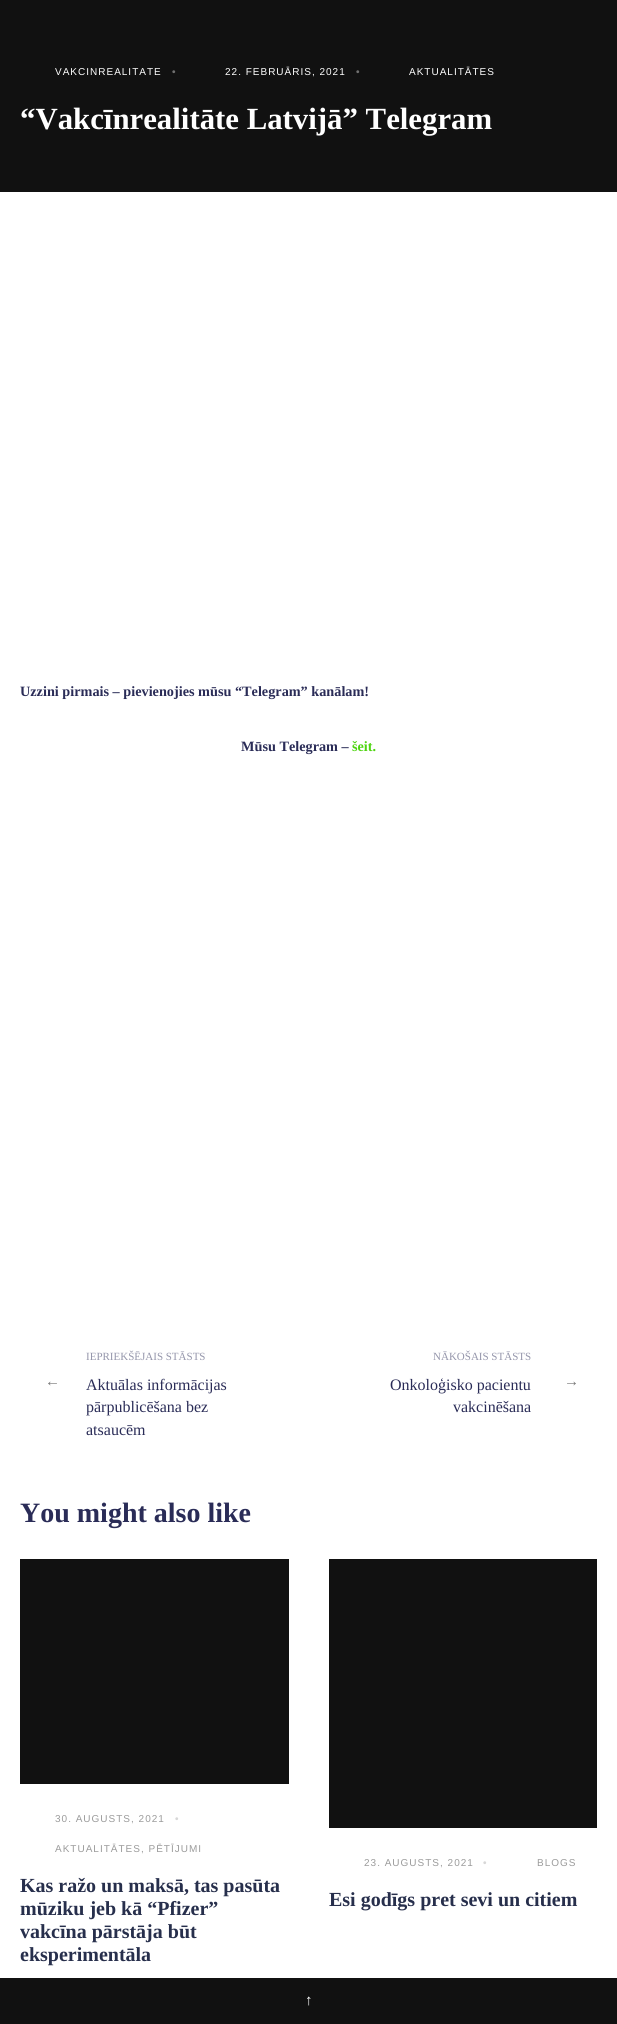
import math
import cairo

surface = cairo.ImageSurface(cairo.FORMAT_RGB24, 617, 2024)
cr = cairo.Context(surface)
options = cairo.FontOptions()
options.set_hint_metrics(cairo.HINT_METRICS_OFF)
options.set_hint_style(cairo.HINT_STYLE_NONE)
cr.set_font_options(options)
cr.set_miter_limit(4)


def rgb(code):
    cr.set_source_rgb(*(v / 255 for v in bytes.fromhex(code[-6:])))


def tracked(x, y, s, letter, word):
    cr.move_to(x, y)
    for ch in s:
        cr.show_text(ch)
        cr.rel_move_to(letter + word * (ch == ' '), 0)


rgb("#ffffff")
cr.paint()
for x, y, w, h, color in [
    (0, 0, 617, 192, "#111111"),
    (20, 1559, 269, 225, "#111111"),
    (329, 1559, 268, 269, "#111111"),
    (0, 1978, 617, 46, "#111111"),
]:
    rgb(color)
    cr.rectangle(x, y, w, h)
    cr.fill()
cr.select_font_face("Liberation Sans")
cr.set_font_size(10)
rgb("#ffffff")
tracked(55, 75, "VAKCINREALITATE", 1, 0)
cr.select_font_face("Liberation Sans", cairo.FONT_SLANT_NORMAL, cairo.FONT_WEIGHT_BOLD)
rgb("#707070")
tracked(172, 75, "•", 1, 0)
cr.select_font_face("Liberation Sans")
rgb("#ffffff")
tracked(225, 75, "22. FEBRUĀRIS, 2021", 1, 0)
cr.select_font_face("Liberation Sans", cairo.FONT_SLANT_NORMAL, cairo.FONT_WEIGHT_BOLD)
rgb("#707070")
tracked(356, 75, "•", 1, 0)
cr.select_font_face("Liberation Sans")
rgb("#ffffff")
tracked(409, 75, "AKTUALITĀTES", 1, 0)
cr.select_font_face("Liberation Serif", cairo.FONT_SLANT_NORMAL, cairo.FONT_WEIGHT_BOLD)
cr.set_font_size(30.8)
cr.move_to(20, 129)
cr.show_text("“Vakcīnrealitāte Latvijā” Telegram")
cr.set_font_size(14.25)
rgb("#2a2c57")
cr.move_to(20, 696)
cr.show_text("Uzzini pirmais – pievienojies mūsu “Telegram” kanālam!")
cr.move_to(241, 751)
cr.show_text("Mūsu Telegram –")
rgb("#4ed410")
cr.move_to(352, 751)
cr.show_text("šeit.")
cr.select_font_face("Liberation Sans")
cr.set_font_size(15)
rgb("#777777")
cr.move_to(45, 1386)
cr.show_text("←")
cr.select_font_face("Liberation Serif")
cr.set_font_size(11)
rgb("#9596ab")
cr.move_to(86, 1360)
cr.show_text("IEPRIEKŠĒJAIS STĀSTS")
cr.set_font_size(16)
rgb("#2a2c57")
for x, y, s in [
    (86, 1390, "Aktuālas informācijas"),
    (86, 1412, "pārpublicēšana bez"),
    (86, 1435, "atsaucēm"),
]:
    cr.move_to(x, y)
    cr.show_text(s)
cr.set_font_size(11)
rgb("#9596ab")
cr.move_to(433, 1360)
cr.show_text("NĀKOŠAIS STĀSTS")
cr.set_font_size(16)
rgb("#2a2c57")
cr.move_to(390, 1390)
cr.show_text("Onkoloģisko pacientu")
cr.move_to(453, 1412)
cr.show_text("vakcinēšana")
cr.select_font_face("Liberation Sans")
cr.set_font_size(15)
rgb("#777777")
cr.move_to(564, 1386)
cr.show_text("→")
cr.select_font_face("Liberation Serif", cairo.FONT_SLANT_NORMAL, cairo.FONT_WEIGHT_BOLD)
cr.set_font_size(28)
rgb("#2a2c57")
cr.move_to(20, 1522)
cr.show_text("You might also like")
cr.select_font_face("Liberation Sans")
cr.set_font_size(10)
rgb("#9b9b9b")
tracked(55, 1822, "30. AUGUSTS, 2021", 1, 0)
cr.select_font_face("Liberation Sans", cairo.FONT_SLANT_NORMAL, cairo.FONT_WEIGHT_BOLD)
rgb("#d7d7d7")
tracked(175, 1822, "•", 1, 0)
cr.select_font_face("Liberation Sans")
rgb("#9b9b9b")
tracked(55, 1852, "AKTUALITĀTES, PĒTĪJUMI", 1, 0)
cr.select_font_face("Liberation Serif", cairo.FONT_SLANT_NORMAL, cairo.FONT_WEIGHT_BOLD)
cr.set_font_size(20)
rgb("#272f4c")
for x, y, s in [
    (20, 1892, "Kas ražo un maksā, tas pasūta"),
    (20, 1915, "mūziku jeb kā “Pfizer”"),
    (20, 1938, "vakcīna pārstāja būt"),
    (20, 1961, "eksperimentāla"),
]:
    cr.move_to(x, y)
    cr.show_text(s)
cr.select_font_face("Liberation Sans")
cr.set_font_size(10)
rgb("#9b9b9b")
tracked(364, 1866, "23. AUGUSTS, 2021", 1, 0)
cr.select_font_face("Liberation Sans", cairo.FONT_SLANT_NORMAL, cairo.FONT_WEIGHT_BOLD)
rgb("#d7d7d7")
tracked(483, 1866, "•", 1, 0)
cr.select_font_face("Liberation Sans")
rgb("#9b9b9b")
tracked(537, 1866, "BLOGS", 1, 0)
cr.select_font_face("Liberation Serif", cairo.FONT_SLANT_NORMAL, cairo.FONT_WEIGHT_BOLD)
cr.set_font_size(20)
rgb("#272f4c")
cr.move_to(329, 1906)
cr.show_text("Esi godīgs pret sevi un citiem")
cr.select_font_face("Liberation Sans")
cr.set_font_size(15)
rgb("#ffffff")
cr.move_to(305, 2005)
cr.show_text("↑")
surface.write_to_png("page.png")
